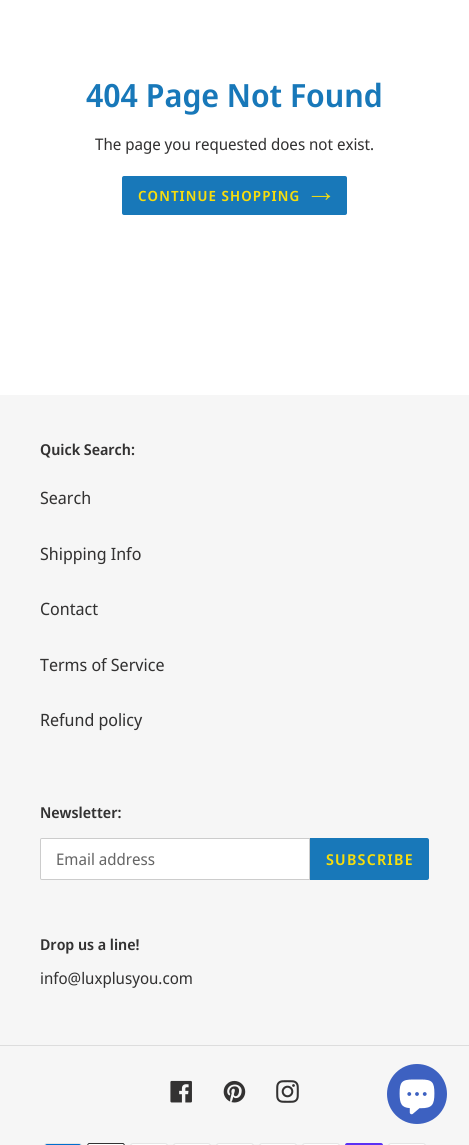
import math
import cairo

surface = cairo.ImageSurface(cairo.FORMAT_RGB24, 469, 1145)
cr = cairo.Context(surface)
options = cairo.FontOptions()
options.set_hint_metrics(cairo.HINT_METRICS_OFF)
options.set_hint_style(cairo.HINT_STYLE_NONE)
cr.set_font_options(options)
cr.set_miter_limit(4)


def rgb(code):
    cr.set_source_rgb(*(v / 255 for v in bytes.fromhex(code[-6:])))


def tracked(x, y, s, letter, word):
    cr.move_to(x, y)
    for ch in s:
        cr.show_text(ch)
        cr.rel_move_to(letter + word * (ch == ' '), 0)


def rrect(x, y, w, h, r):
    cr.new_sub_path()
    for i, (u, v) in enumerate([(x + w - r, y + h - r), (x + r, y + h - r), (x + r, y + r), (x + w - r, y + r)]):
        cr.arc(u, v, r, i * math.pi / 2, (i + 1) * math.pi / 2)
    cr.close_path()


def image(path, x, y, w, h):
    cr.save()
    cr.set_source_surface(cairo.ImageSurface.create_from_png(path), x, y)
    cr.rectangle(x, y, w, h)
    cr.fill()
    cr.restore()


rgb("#ffffff")
cr.paint()
rgb("#1878b9")
rrect(122, 176, 225, 39, 2)
cr.fill()
image("img/1.png", 311, 192, 20, 8)
rgb("#f6f6f6")
cr.rectangle(0, 395, 469, 750)
cr.fill()
rgb("#ffffff")
cr.new_path()
cr.move_to(42, 838.5)
cr.line_to(309.5, 838.5)
cr.line_to(309.5, 879.5)
cr.line_to(42, 879.5)
cr.curve_to(41, 879.5, 40.5, 879, 40.5, 878)
cr.line_to(40.5, 840)
cr.curve_to(40.5, 839, 41, 838.5, 42, 838.5)
cr.close_path()
cr.fill_preserve()
rgb("#cccccc")
cr.set_line_width(1)
cr.stroke()
rgb("#1878b9")
cr.new_path()
cr.move_to(310, 838)
cr.line_to(427, 838)
cr.curve_to(428, 838, 429, 839, 429, 840)
cr.line_to(429, 878)
cr.curve_to(429, 879, 428, 880, 427, 880)
cr.line_to(310, 880)
cr.close_path()
cr.fill()
rgb("#dddddd")
cr.rectangle(0, 1045, 469, 1)
cr.fill()
image("img/2.png", 170, 1080, 22, 23)
image("img/3.png", 223, 1080, 23, 23)
image("img/4.png", 276, 1080, 23, 23)
image("img/5.png", 44, 1143, 38, 2)
image("img/6.png", 87, 1143, 38, 2)
image("img/7.png", 130, 1143, 38, 2)
image("img/7.png", 173, 1143, 38, 2)
image("img/7.png", 216, 1143, 38, 2)
image("img/7.png", 259, 1143, 38, 2)
image("img/7.png", 302, 1143, 38, 2)
image("img/8.png", 345, 1143, 38, 2)
image("img/7.png", 388, 1143, 38, 2)
rgb("#3d61c1")
cr.arc(417, 1094, 30, 0, 2 * math.pi)
cr.fill()
image("img/9.png", 399, 1079, 36, 36)
cr.select_font_face("Noto Sans Display SemiBold")
cr.set_font_size(32)
rgb("#1878b9")
cr.move_to(86, 107)
cr.show_text("404 Page Not Found")
cr.select_font_face("Noto Sans Display")
cr.set_font_size(16)
rgb("#333232")
cr.move_to(95, 150)
cr.show_text("The page you requested does not exist.")
cr.select_font_face("Noto Sans Display SemiBold")
cr.set_font_size(14.1)
rgb("#f7dd0c")
tracked(138, 201, "CONTINUE SHOPPING", 1.1, 0)
cr.set_font_size(15)
rgb("#333232")
cr.move_to(40, 455)
cr.show_text("Quick Search:")
cr.select_font_face("Noto Sans Display")
cr.set_font_size(17)
for x, y, s in [
    (40, 504, "Search"),
    (40, 560, "Shipping Info"),
    (40, 615, "Contact"),
    (40, 671, "Terms of Service"),
    (40, 726, "Refund policy"),
]:
    cr.move_to(x, y)
    cr.show_text(s)
cr.select_font_face("Noto Sans Display SemiBold")
cr.set_font_size(15)
cr.move_to(40, 818)
cr.show_text("Newsletter:")
cr.select_font_face("Noto Sans Display")
cr.set_font_size(16)
rgb("#666666")
cr.move_to(56, 865)
cr.show_text("Email address")
cr.select_font_face("Noto Sans Display SemiBold")
cr.set_font_size(15)
rgb("#f7dd0c")
tracked(326, 865, "SUBSCRIBE", 1.25, 0)
rgb("#333232")
cr.move_to(40, 950)
cr.show_text("Drop us a line!")
cr.select_font_face("Noto Sans Display")
cr.set_font_size(16)
cr.move_to(40, 984)
cr.show_text("info@luxplusyou.com")
surface.write_to_png("page.png")
